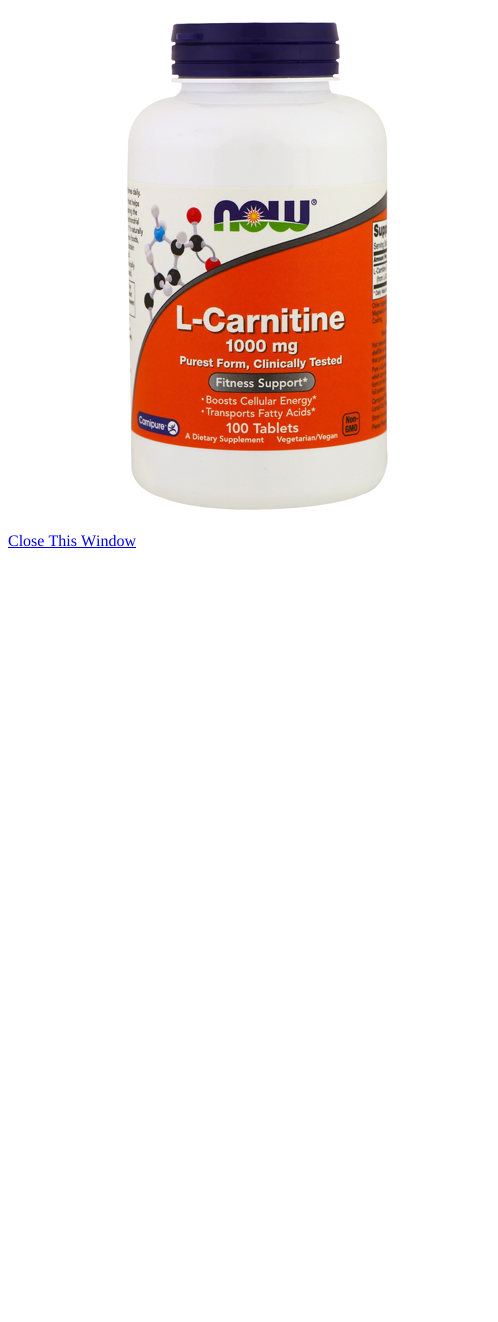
import math
import cairo

surface = cairo.ImageSurface(cairo.FORMAT_RGB24, 498, 1322)
cr = cairo.Context(surface)
options = cairo.FontOptions()
options.set_hint_metrics(cairo.HINT_METRICS_OFF)
options.set_hint_style(cairo.HINT_STYLE_NONE)
cr.set_font_options(options)
cr.set_miter_limit(4)


def rgb(code):
    cr.set_source_rgb(*(v / 255 for v in bytes.fromhex(code[-6:])))


def image(path, x, y, w, h):
    cr.save()
    cr.set_source_surface(cairo.ImageSurface.create_from_png(path), x, y)
    cr.rectangle(x, y, w, h)
    cr.fill()
    cr.restore()


rgb("#ffffff")
cr.paint()
image("img/1.png", 127, 22, 261, 488)
rgb("#0000ee")
cr.rectangle(8, 547, 128, 1)
cr.fill()
cr.select_font_face("Liberation Serif")
cr.set_font_size(16)
cr.move_to(8, 546)
cr.show_text("Close This Window")
surface.write_to_png("page.png")
